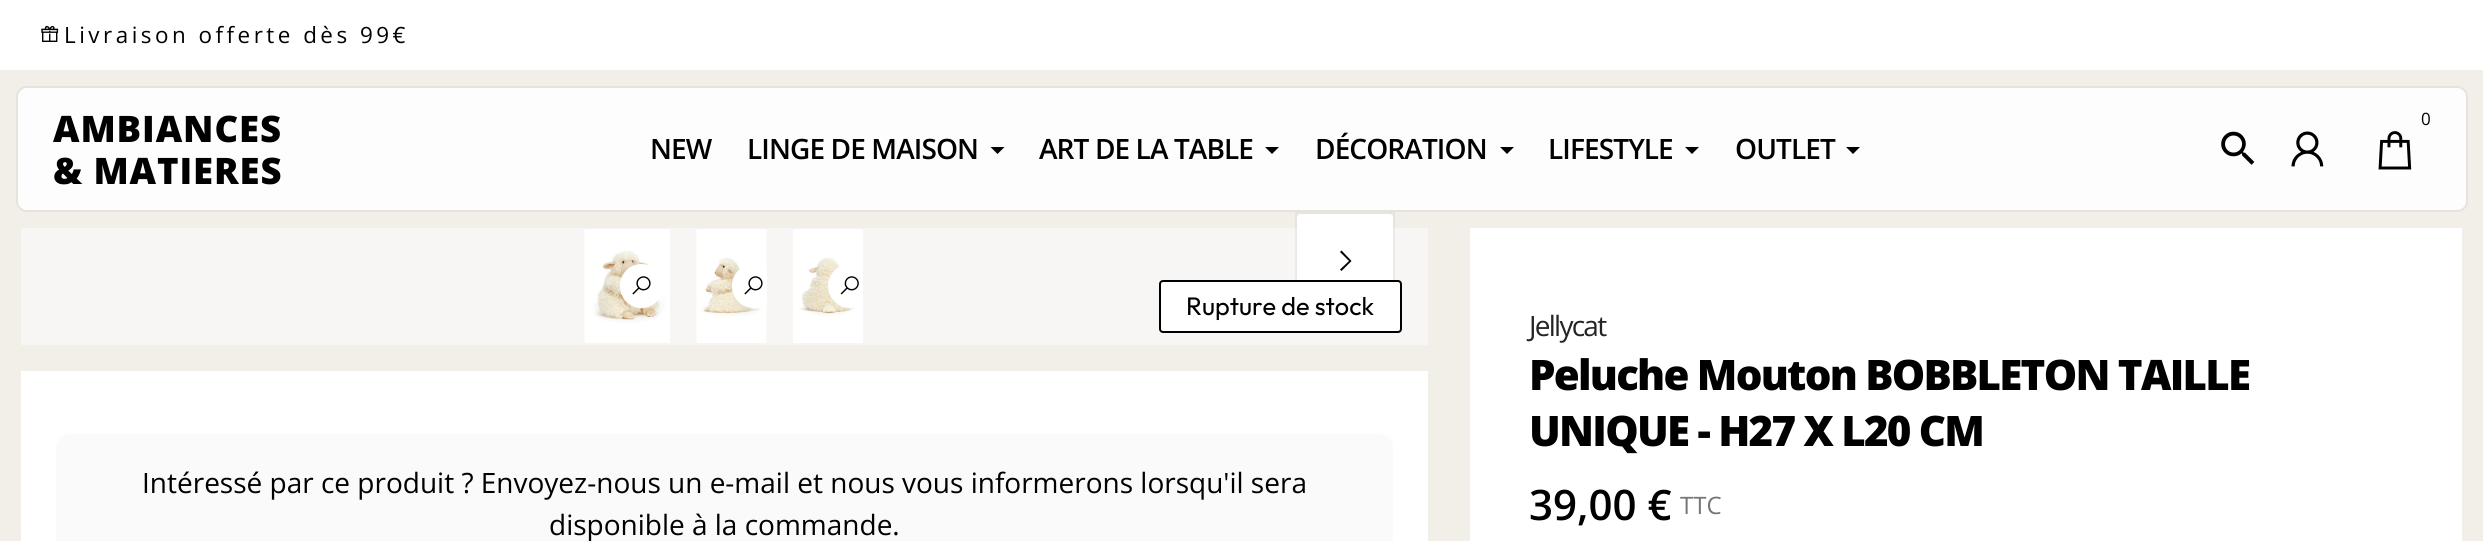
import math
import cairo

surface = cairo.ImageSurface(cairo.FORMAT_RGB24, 2483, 541)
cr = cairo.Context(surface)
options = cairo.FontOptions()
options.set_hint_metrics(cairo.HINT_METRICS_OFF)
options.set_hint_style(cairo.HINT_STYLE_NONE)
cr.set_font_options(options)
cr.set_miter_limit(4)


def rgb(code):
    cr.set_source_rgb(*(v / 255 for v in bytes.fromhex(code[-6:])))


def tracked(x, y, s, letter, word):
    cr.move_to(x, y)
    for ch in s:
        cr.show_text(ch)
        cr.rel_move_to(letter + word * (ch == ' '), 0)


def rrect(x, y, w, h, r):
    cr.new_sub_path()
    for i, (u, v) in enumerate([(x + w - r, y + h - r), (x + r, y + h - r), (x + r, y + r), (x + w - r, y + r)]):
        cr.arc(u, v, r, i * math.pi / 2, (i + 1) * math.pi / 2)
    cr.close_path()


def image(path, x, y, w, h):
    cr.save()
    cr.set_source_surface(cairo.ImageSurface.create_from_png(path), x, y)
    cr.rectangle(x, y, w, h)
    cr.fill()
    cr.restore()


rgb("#f1efe7")
cr.paint()
rgb("#ffffff")
cr.rectangle(0, 0, 2483, 70)
cr.fill()
image("img/1.png", 41, 25, 18, 17)
rrect(17, 87, 2450, 124, 10)
rgb("#e5e3db")
cr.stroke()
cr.set_source_rgba(1, 1, 1, 0.9)
rrect(18, 88, 2448, 122, 9)
cr.fill()
rgb("#000000")
cr.new_path()
cr.move_to(990.5, 147)
cr.line_to(1004.5, 147)
cr.line_to(997.5, 154)
cr.close_path()
cr.fill()
cr.new_path()
cr.move_to(1265, 147)
cr.line_to(1279, 147)
cr.line_to(1272, 154)
cr.close_path()
cr.fill()
cr.new_path()
cr.move_to(1500, 147)
cr.line_to(1514, 147)
cr.line_to(1507, 154)
cr.close_path()
cr.fill()
cr.new_path()
cr.move_to(1685, 147)
cr.line_to(1699, 147)
cr.line_to(1692, 154)
cr.close_path()
cr.fill()
cr.new_path()
cr.move_to(1846, 147)
cr.line_to(1860, 147)
cr.line_to(1853, 154)
cr.close_path()
cr.fill()
image("img/2.png", 2378, 131, 34, 39)
image("img/3.png", 2221, 131, 34, 34)
image("img/4.png", 2291, 131, 33, 36)
rgb("#f8f6f4")
cr.rectangle(21, 228, 1407, 117)
cr.fill()
cr.rectangle(1296, 213, 98, 98)
cr.set_source_rgba(0, 0, 0, 0.05)
cr.stroke()
rgb("#ffffff")
rrect(1297, 214, 96, 96, 4)
cr.fill()
rgb("#000000")
cr.new_path()
cr.move_to(1341.5, 250.5)
cr.line_to(1340, 252)
cr.line_to(1349, 261)
cr.line_to(1340, 269.5)
cr.line_to(1341.5, 271)
cr.line_to(1351.5, 261)
cr.close_path()
cr.fill()
image("img/5.png", 584, 229, 86, 114)
rgb("#ffffff")
rrect(620, 264, 43, 44, 21.5)
cr.fill()
image("img/6.png", 632, 276, 19, 19)
image("img/7.png", 696, 229, 71, 114)
cr.save()
cr.rectangle(697, 229, 70, 114)
cr.clip()
rrect(732, 264, 43, 44, 21.5)
cr.fill()
cr.restore()
image("img/6.png", 744, 276, 19, 19)
cr.rectangle(793, 230, 70, 113)
cr.fill()
image("img/8.png", 793, 229, 70, 87)
cr.save()
cr.rectangle(793, 229, 70, 114)
cr.clip()
cr.arc(850, 286, 22, 0, 2 * math.pi)
cr.fill()
cr.restore()
image("img/9.png", 840, 276, 19, 19)
rrect(1160, 281, 241, 51, 3)
cr.fill_preserve()
rgb("#000000")
cr.stroke()
rgb("#ffffff")
cr.rectangle(21, 371, 1407, 170)
cr.fill()
rgb("#fafafa")
rrect(56, 434, 1337, 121, 14)
cr.fill()
rgb("#ffffff")
cr.rectangle(1470, 228, 992, 313)
cr.fill()
cr.select_font_face("Open Sans")
cr.set_font_size(22.4)
rgb("#000000")
tracked(64, 43, "Livraison offerte dès 99€", 3.5, 0)
cr.select_font_face("Open Sans ExtraBold")
cr.set_font_size(36.5)
tracked(53, 142, "AMBIANCES", 0.9, 0)
tracked(53, 184, "& MATIERES", 0.9, 0)
cr.select_font_face("Open Sans SemiBold")
cr.set_font_size(28)
for x, y, s in [
    (650, 159, "NEW"),
    (747, 159, "LINGE DE MAISON"),
    (1039, 159, "ART DE LA TABLE"),
    (1315, 159, "DÉCORATION"),
    (1548, 159, "LIFESTYLE"),
    (1735, 159, "OUTLET"),
]:
    tracked(x, y, s, -0.9, 0)
cr.select_font_face("Open Sans")
cr.set_font_size(17)
cr.move_to(2421, 125)
cr.show_text("0")
cr.select_font_face("Outfit")
cr.set_font_size(25.25)
cr.move_to(1186, 315)
cr.show_text("Rupture de stock")
cr.select_font_face("Open Sans")
cr.set_font_size(28)
cr.move_to(142, 493)
cr.show_text("Intéressé par ce produit ? Envoyez-nous un e-mail et nous vous informerons lorsqu'il sera")
cr.move_to(549, 535)
cr.show_text("disponible à la commande.")
rgb("#242424")
tracked(1529, 336, "Jellycat", -1.75, 0)
cr.select_font_face("Open Sans ExtraBold")
cr.set_font_size(42)
rgb("#000000")
tracked(1529, 390, "Peluche Mouton BOBBLETON TAILLE", -1.75, 0)
tracked(1529, 446, "UNIQUE - H27 X L20 CM", -1.75, 0)
cr.select_font_face("Open Sans SemiBold")
cr.move_to(1529, 520)
cr.show_text("39,00 €")
cr.select_font_face("Open Sans")
cr.set_font_size(24)
rgb("#757575")
cr.move_to(1680, 514)
cr.show_text("TTC")
surface.write_to_png("page.png")
